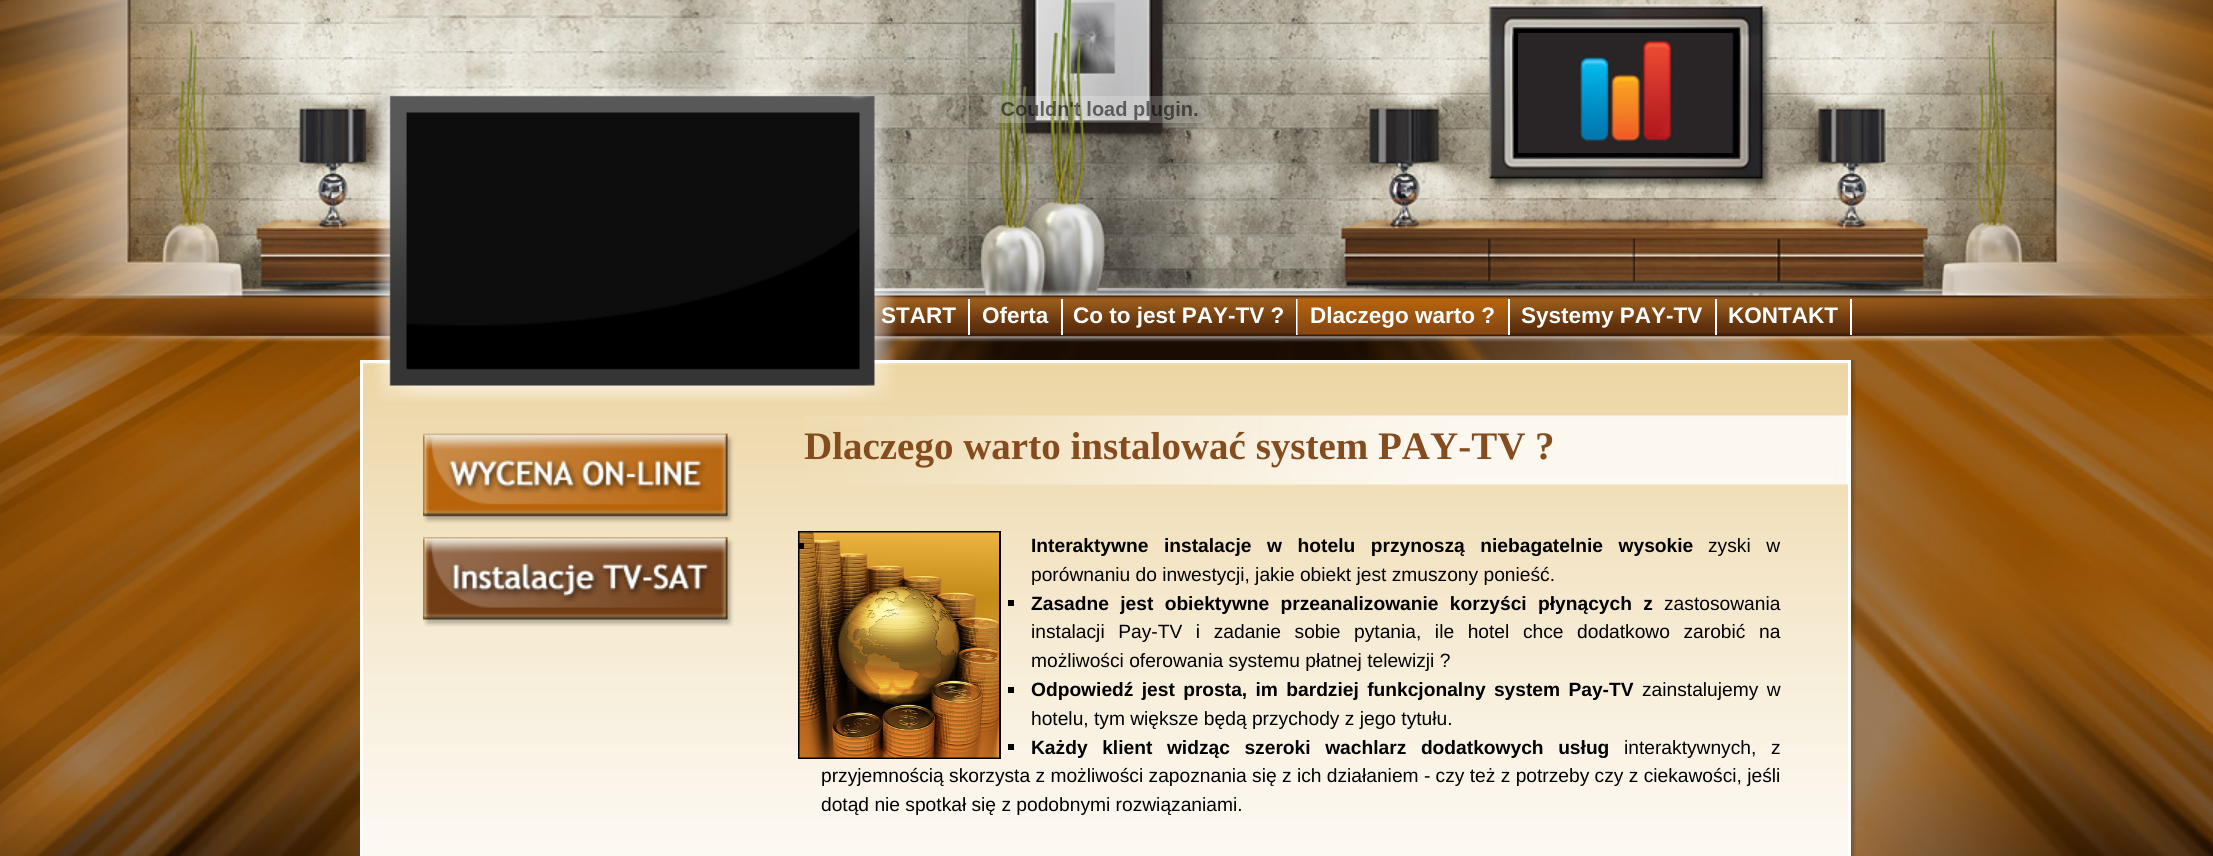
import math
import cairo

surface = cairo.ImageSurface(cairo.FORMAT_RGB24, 2213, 856)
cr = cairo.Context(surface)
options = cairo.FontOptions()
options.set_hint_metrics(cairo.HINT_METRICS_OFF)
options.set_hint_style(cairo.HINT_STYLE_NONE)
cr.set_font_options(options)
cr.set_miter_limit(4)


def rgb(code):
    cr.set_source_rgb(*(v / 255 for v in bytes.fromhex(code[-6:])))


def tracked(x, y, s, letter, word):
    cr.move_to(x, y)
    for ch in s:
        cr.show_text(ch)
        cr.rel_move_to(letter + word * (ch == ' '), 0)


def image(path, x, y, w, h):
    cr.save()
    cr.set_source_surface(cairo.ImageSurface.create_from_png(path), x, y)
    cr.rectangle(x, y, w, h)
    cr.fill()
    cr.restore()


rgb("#ffffff")
cr.paint()
image("img/1.png", 0, 0, 2213, 856)
image("img/3.png", 991, 96, 217, 27)
image("img/4.png", 1518, 33, 215, 120)
image("img/5.png", 873, 296, 978, 41)
for x, y, w, h, color in [
    (968, 299, 2, 36, "#ffffff"),
    (1061, 299, 2, 36, "#ffffff"),
    (1296, 299, 2, 36, "#ffffff"),
]:
    rgb(color)
    cr.rectangle(x, y, w, h)
    cr.fill()
image("img/6.png", 1297, 298, 212, 37)
for x, y, w, h, color in [
    (1508, 299, 2, 36, "#ffffff"),
    (1715, 299, 2, 36, "#ffffff"),
    (1850, 299, 2, 36, "#ffffff"),
]:
    rgb(color)
    cr.rectangle(x, y, w, h)
    cr.fill()
image("img/7.png", 1851, 360, 5, 496)
image("img/8.png", 363, 363, 1485, 493)
cr.rectangle(361.5, 361.5, 1488, 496)
cr.set_line_width(3)
cr.stroke()
image("img/9.png", 423, 433, 312, 91)
image("img/10.png", 423, 537, 312, 90)
image("img/11.png", 804, 415, 1044, 70)
cr.rectangle(799, 532, 201, 226)
rgb("#000000")
cr.set_line_width(2)
cr.stroke()
image("img/12.png", 799, 532, 200, 226)
for x, y, w, h, color in [
    (798, 543, 6, 6, "#000000"),
    (1008, 600, 6, 6, "#000000"),
    (1008, 687, 6, 6, "#000000"),
    (1008, 744, 6, 6, "#000000"),
]:
    rgb(color)
    cr.rectangle(x, y, w, h)
    cr.fill()
cr.select_font_face("Liberation Sans", cairo.FONT_SLANT_NORMAL, cairo.FONT_WEIGHT_BOLD)
cr.set_font_size(22.5)
rgb("#ffffff")
cr.move_to(881, 323)
cr.show_text("START")
image("img/2.png", 373, 84, 524, 318)
for x, y, s in [
    (982, 323, "Oferta"),
    (1073, 323, "Co to jest PAY-TV ?"),
    (1310, 323, "Dlaczego warto ?"),
    (1521, 323, "Systemy PAY-TV"),
    (1728, 323, "KONTAKT"),
]:
    cr.move_to(x, y)
    cr.show_text(s)
cr.select_font_face("Liberation Serif", cairo.FONT_SLANT_NORMAL, cairo.FONT_WEIGHT_BOLD)
cr.set_font_size(39)
rgb("#854c1f")
cr.move_to(804, 459)
cr.show_text("Dlaczego warto instalować system PAY-TV ?")
cr.select_font_face("Liberation Sans", cairo.FONT_SLANT_NORMAL, cairo.FONT_WEIGHT_BOLD)
cr.set_font_size(19.2)
rgb("#000000")
tracked(1031, 552, "Interaktywne instalacje w hotelu przynoszą niebagatelnie wysokie", 0, 10.25)
cr.select_font_face("Liberation Sans")
tracked(1708, 552, "zyski w", 0, 10.25)
cr.move_to(1031, 581)
cr.show_text("porównaniu do inwestycji, jakie obiekt jest zmuszony ponieść.")
cr.select_font_face("Liberation Sans", cairo.FONT_SLANT_NORMAL, cairo.FONT_WEIGHT_BOLD)
tracked(1031, 610, "Zasadne jest obiektywne przeanalizowanie korzyści płynących z", 0, 6)
cr.select_font_face("Liberation Sans")
cr.move_to(1664, 610)
cr.show_text("zastosowania")
tracked(1031, 638, "instalacji Pay-TV i zadanie sobie pytania, ile hotel chce dodatkowo zarobić na", 0, 8.25)
cr.move_to(1031, 667)
cr.show_text("możliwości oferowania systemu płatnej telewizji ?")
cr.select_font_face("Liberation Sans", cairo.FONT_SLANT_NORMAL, cairo.FONT_WEIGHT_BOLD)
tracked(1031, 696, "Odpowiedź jest prosta, im bardziej funkcjonalny system Pay-TV", 0, 3)
cr.select_font_face("Liberation Sans")
tracked(1642, 696, "zainstalujemy w", 0, 3)
cr.move_to(1031, 725)
cr.show_text("hotelu, tym większe będą przychody z jego tytułu.")
cr.select_font_face("Liberation Sans", cairo.FONT_SLANT_NORMAL, cairo.FONT_WEIGHT_BOLD)
tracked(1031, 754, "Każdy klient widząc szeroki wachlarz dodatkowych usług", 0, 9.25)
cr.select_font_face("Liberation Sans")
tracked(1624, 754, "interaktywnych, z", 0, 9.25)
cr.move_to(821, 782)
cr.show_text("przyjemnością skorzysta z możliwości zapoznania się z ich działaniem - czy też z potrzeby czy z ciekawości, jeśli")
cr.move_to(821, 811)
cr.show_text("dotąd nie spotkał się z podobnymi rozwiązaniami.")
surface.write_to_png("page.png")
